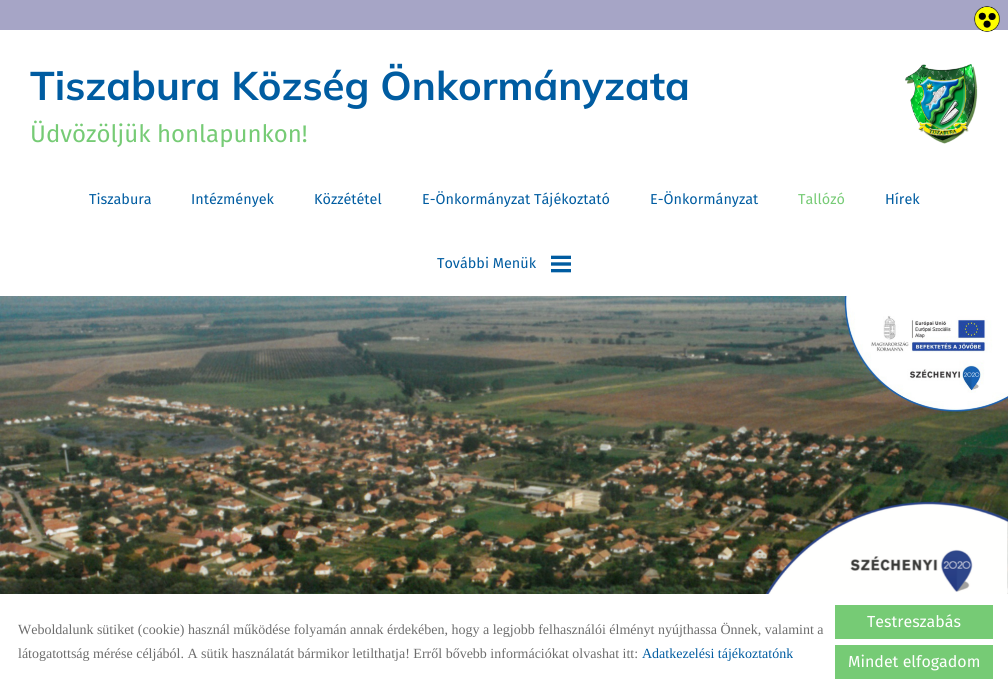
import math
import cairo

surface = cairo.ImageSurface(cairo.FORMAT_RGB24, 1008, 690)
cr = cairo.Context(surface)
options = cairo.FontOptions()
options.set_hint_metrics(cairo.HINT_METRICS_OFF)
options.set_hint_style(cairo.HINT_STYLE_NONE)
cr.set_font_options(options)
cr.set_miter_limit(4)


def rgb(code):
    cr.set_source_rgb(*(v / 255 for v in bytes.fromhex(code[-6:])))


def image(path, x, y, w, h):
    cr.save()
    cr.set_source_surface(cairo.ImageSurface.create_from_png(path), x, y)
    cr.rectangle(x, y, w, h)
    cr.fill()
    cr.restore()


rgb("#ffffff")
cr.paint()
rgb("#a6a5c6")
cr.rectangle(0, 0, 1008, 30)
cr.fill()
image("img/1.png", 974, 6, 26, 26)
image("img/2.png", 905, 64, 73, 80)
image("img/3.png", 551, 255, 20, 18)
image("img/4.png", 0, 296, 1008, 298)
image("img/5.png", 765, 501, 243, 93)
rgb("#76cb75")
cr.rectangle(835, 605, 158, 34)
cr.fill()
cr.rectangle(835, 645, 158, 34)
cr.fill()
cr.select_font_face("Mulish ExtraLight")
cr.set_font_size(40)
rgb("#005ca1")
cr.move_to(30, 100)
cr.show_text("Tiszabura Község Önkormányzata")
cr.select_font_face("Fira Sans")
cr.set_font_size(24)
rgb("#76cb75")
cr.move_to(30, 142)
cr.show_text("Üdvözöljük honlapunkon!")
cr.set_font_size(14.4)
rgb("#005ca1")
for x, y, s in [
    (89, 204, "Tiszabura"),
    (191, 204, "Intézmények"),
    (314, 204, "Közzététel"),
    (422, 204, "E-Önkormányzat Tájékoztató"),
    (650, 204, "E-Önkormányzat"),
]:
    cr.move_to(x, y)
    cr.show_text(s)
rgb("#76cb75")
cr.move_to(798, 204)
cr.show_text("Tallózó")
rgb("#005ca1")
cr.move_to(885, 204)
cr.show_text("Hírek")
cr.move_to(437, 268)
cr.show_text("További Menük")
cr.select_font_face("Liberation Serif")
cr.set_font_size(14)
rgb("#6d6d6d")
cr.move_to(18, 634)
cr.show_text("Weboldalunk sütiket (cookie) használ működése folyamán annak érdekében, hogy a legjobb felhasználói élményt nyújthassa Önnek, valamint a")
cr.move_to(18, 658)
cr.show_text("látogatottság mérése céljából. A sütik használatát bármikor letilthatja! Erről bővebb információkat olvashat itt:")
rgb("#005ca1")
cr.move_to(642, 658)
cr.show_text("Adatkezelési tájékoztatónk")
cr.select_font_face("Fira Sans")
cr.set_font_size(16)
rgb("#ffffff")
cr.move_to(867, 627)
cr.show_text("Testreszabás")
cr.move_to(848, 667)
cr.show_text("Mindet elfogadom")
surface.write_to_png("page.png")
